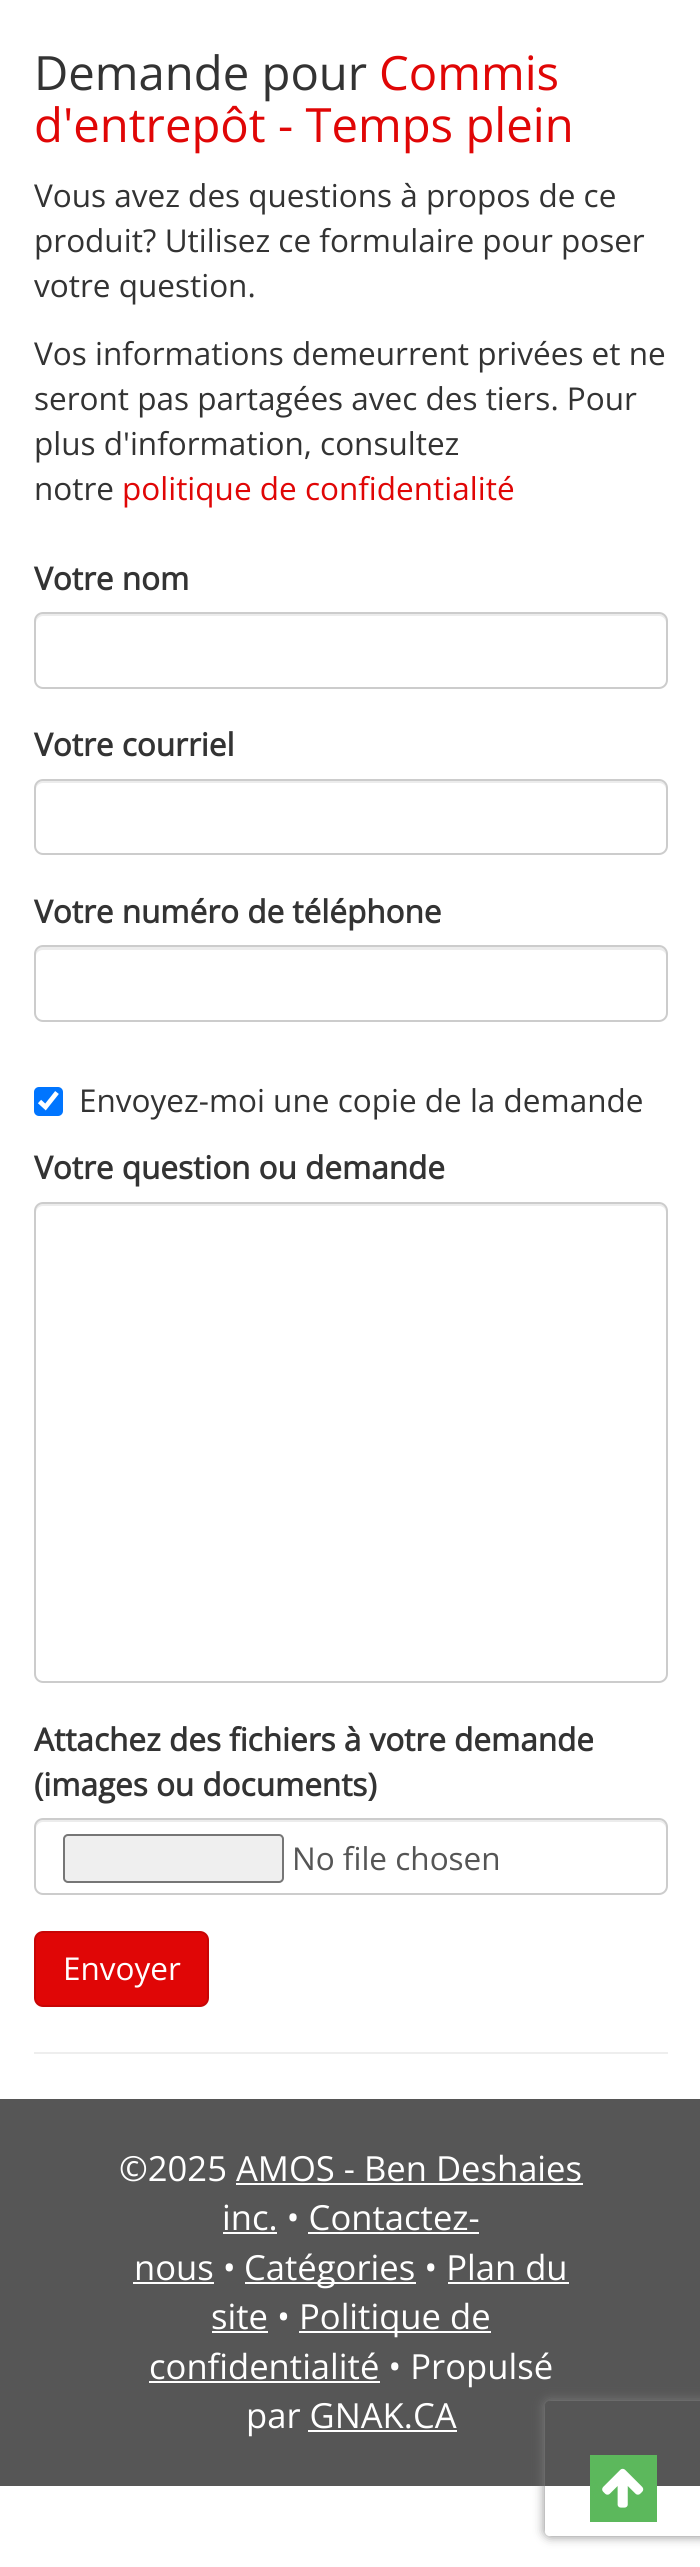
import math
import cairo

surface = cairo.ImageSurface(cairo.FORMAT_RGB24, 700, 2567)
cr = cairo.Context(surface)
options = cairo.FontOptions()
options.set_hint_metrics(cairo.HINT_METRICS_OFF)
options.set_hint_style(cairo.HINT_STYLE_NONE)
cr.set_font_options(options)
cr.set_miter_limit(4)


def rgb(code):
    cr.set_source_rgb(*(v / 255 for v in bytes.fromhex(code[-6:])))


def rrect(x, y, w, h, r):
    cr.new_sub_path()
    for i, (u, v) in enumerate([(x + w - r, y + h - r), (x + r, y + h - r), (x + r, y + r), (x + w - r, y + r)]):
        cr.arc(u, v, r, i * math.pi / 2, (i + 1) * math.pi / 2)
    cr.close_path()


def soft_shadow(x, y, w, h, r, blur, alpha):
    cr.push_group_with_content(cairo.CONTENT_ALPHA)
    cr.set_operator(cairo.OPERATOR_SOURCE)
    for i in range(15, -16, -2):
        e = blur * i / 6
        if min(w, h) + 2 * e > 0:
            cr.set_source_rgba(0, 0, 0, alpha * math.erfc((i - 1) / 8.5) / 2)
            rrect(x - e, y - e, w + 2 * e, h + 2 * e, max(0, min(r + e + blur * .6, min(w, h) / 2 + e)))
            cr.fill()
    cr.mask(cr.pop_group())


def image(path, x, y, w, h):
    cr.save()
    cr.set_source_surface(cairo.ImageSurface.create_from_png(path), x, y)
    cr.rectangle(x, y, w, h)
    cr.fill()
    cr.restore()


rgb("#ffffff")
cr.paint()
rgb("#ececec")
cr.new_path()
cr.move_to(43, 616)
cr.line_to(659, 616)
cr.curve_to(663, 616, 666, 620, 666, 623)
cr.line_to(666, 621)
cr.curve_to(666, 617, 663, 614, 659, 614)
cr.line_to(43, 614)
cr.curve_to(39, 614, 36, 617, 36, 621)
cr.line_to(36, 623)
cr.curve_to(36, 620, 39, 616, 43, 616)
cr.close_path()
cr.fill()
rrect(35, 613, 632, 75, 8)
rgb("#cccccc")
cr.stroke()
rgb("#ececec")
cr.new_path()
cr.move_to(43, 783)
cr.line_to(659, 783)
cr.curve_to(663, 783, 666, 786, 666, 790)
cr.line_to(666, 788)
cr.curve_to(666, 784, 663, 781, 659, 781)
cr.line_to(43, 781)
cr.curve_to(39, 781, 36, 784, 36, 788)
cr.line_to(36, 790)
cr.curve_to(36, 786, 39, 783, 43, 783)
cr.close_path()
cr.fill()
rrect(35, 780, 632, 74, 8)
rgb("#cccccc")
cr.stroke()
rgb("#ececec")
cr.new_path()
cr.move_to(43, 950)
cr.line_to(659, 950)
cr.curve_to(663, 950, 666, 953, 666, 956)
cr.line_to(666, 954)
cr.curve_to(666, 950, 663, 947, 659, 947)
cr.line_to(43, 947)
cr.curve_to(39, 947, 36, 950, 36, 954)
cr.line_to(36, 956)
cr.curve_to(36, 953, 39, 950, 43, 950)
cr.close_path()
cr.fill()
rrect(35, 946, 632, 75, 8)
rgb("#cccccc")
cr.stroke()
rgb("#0075ff")
rrect(34, 1087, 29, 29, 5)
cr.fill()
cr.new_path()
cr.move_to(39.5, 1101.5)
cr.line_to(45.5, 1107)
cr.line_to(57, 1092.5)
rgb("#ffffff")
cr.set_line_width(4.7)
cr.stroke()
rgb("#ececec")
cr.new_path()
cr.move_to(43, 1206)
cr.line_to(659, 1206)
cr.curve_to(663, 1206, 666, 1209, 666, 1213)
cr.line_to(666, 1211)
cr.curve_to(666, 1207, 663, 1204, 659, 1204)
cr.line_to(43, 1204)
cr.curve_to(39, 1204, 36, 1207, 36, 1211)
cr.line_to(36, 1213)
cr.curve_to(36, 1209, 39, 1206, 43, 1206)
cr.close_path()
cr.fill()
rrect(35, 1203, 632, 479, 8)
rgb("#cccccc")
cr.set_line_width(2)
cr.stroke()
rgb("#ececec")
cr.new_path()
cr.move_to(43, 1822)
cr.line_to(659, 1822)
cr.curve_to(663, 1822, 666, 1826, 666, 1829)
cr.line_to(666, 1827)
cr.curve_to(666, 1823, 663, 1820, 659, 1820)
cr.line_to(43, 1820)
cr.curve_to(39, 1820, 36, 1823, 36, 1827)
cr.line_to(36, 1829)
cr.curve_to(36, 1826, 39, 1822, 43, 1822)
cr.close_path()
cr.fill()
rrect(35, 1819, 632, 75, 8)
rgb("#cccccc")
cr.stroke()
rgb("#efefef")
rrect(64, 1835, 219, 47, 4)
cr.fill_preserve()
rgb("#767676")
cr.stroke()
rgb("#e00606")
rrect(35, 1932, 173, 74, 8)
cr.fill_preserve()
rgb("#c70505")
cr.stroke()
for x, y, w, h, color in [
    (34, 2052, 634, 2, "#eeeeee"),
    (0, 2099, 700, 387, "#565656"),
    (236, 2183, 347, 2, "#ffffff"),
    (223, 2232, 54, 2, "#ffffff"),
    (308, 2232, 171, 2, "#ffffff"),
    (133, 2282, 81, 2, "#ffffff"),
    (245, 2282, 171, 2, "#ffffff"),
    (448, 2282, 121, 2, "#ffffff"),
    (212, 2331, 56, 2, "#ffffff"),
    (299, 2331, 192, 2, "#ffffff"),
    (149, 2381, 231, 2, "#ffffff"),
    (308, 2430, 149, 2, "#ffffff"),
    (590, 2455, 67, 67, "#5cb85c"),
]:
    rgb(color)
    cr.rectangle(x, y, w, h)
    cr.fill()
image("img/1.png", 602, 2468, 42, 40)
cr.save()
cr.set_fill_rule(cairo.FILL_RULE_EVEN_ODD)
cr.new_path()
cr.move_to(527, 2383)
cr.line_to(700, 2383)
cr.line_to(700, 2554)
cr.line_to(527, 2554)
cr.close_path()
cr.move_to(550, 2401)
cr.line_to(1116, 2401)
cr.curve_to(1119, 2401, 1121, 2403, 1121, 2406)
cr.line_to(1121, 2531)
cr.curve_to(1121, 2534, 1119, 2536, 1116, 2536)
cr.line_to(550, 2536)
cr.curve_to(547, 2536, 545, 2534, 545, 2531)
cr.line_to(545, 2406)
cr.curve_to(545, 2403, 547, 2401, 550, 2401)
cr.close_path()
cr.clip()
rgb("#808080")
soft_shadow(545, 2401, 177, 135, 5, 5.5, 1)
cr.restore()
cr.select_font_face("Open Sans")
cr.set_font_size(47.25)
rgb("#333333")
cr.move_to(34, 90)
cr.show_text("Demande pour")
rgb("#e00606")
cr.move_to(379, 90)
cr.show_text("Commis")
cr.move_to(34, 142)
cr.show_text("d'entrepôt - Temps plein")
cr.set_font_size(31.5)
rgb("#333333")
for x, y, s in [
    (34, 207, "Vous avez des questions à propos de ce"),
    (34, 252, "produit? Utilisez ce formulaire pour poser"),
    (34, 297, "votre question."),
    (34, 365, "Vos informations demeurrent privées et ne"),
    (34, 410, "seront pas partagées avec des tiers. Pour"),
    (34, 455, "plus d'information, consultez"),
    (34, 500, "notre"),
]:
    cr.move_to(x, y)
    cr.show_text(s)
rgb("#e00606")
cr.move_to(122, 500)
cr.show_text("politique de confidentialité")
cr.select_font_face("Open Sans", cairo.FONT_SLANT_NORMAL, cairo.FONT_WEIGHT_BOLD)
rgb("#333333")
for x, y, s in [
    (34, 590, "Votre nom"),
    (34, 756, "Votre courriel"),
    (34, 923, "Votre numéro de téléphone"),
]:
    cr.move_to(x, y)
    cr.show_text(s)
cr.select_font_face("Open Sans")
cr.move_to(79, 1112)
cr.show_text("Envoyez-moi une copie de la demande")
cr.select_font_face("Open Sans", cairo.FONT_SLANT_NORMAL, cairo.FONT_WEIGHT_BOLD)
for x, y, s in [
    (34, 1179, "Votre question ou demande"),
    (34, 1751, "Attachez des fichiers à votre demande"),
    (34, 1796, "(images ou documents)"),
]:
    cr.move_to(x, y)
    cr.show_text(s)
cr.select_font_face("Open Sans")
rgb("#555555")
cr.move_to(292, 1870)
cr.show_text("No file chosen")
rgb("#ffffff")
cr.move_to(63, 1980)
cr.show_text("Envoyer")
cr.set_font_size(34.6)
for x, y, s in [
    (119, 2181, "©2025 AMOS - Ben Deshaies"),
    (222, 2230, "inc. • Contactez-"),
    (134, 2280, "nous •"),
    (244, 2280, "Catégories • Plan du"),
    (211, 2329, "site •"),
    (299, 2329, "Politique de"),
    (149, 2379, "confidentialité • Propulsé"),
    (246, 2428, "par GNAK.CA"),
]:
    cr.move_to(x, y)
    cr.show_text(s)
surface.write_to_png("page.png")
